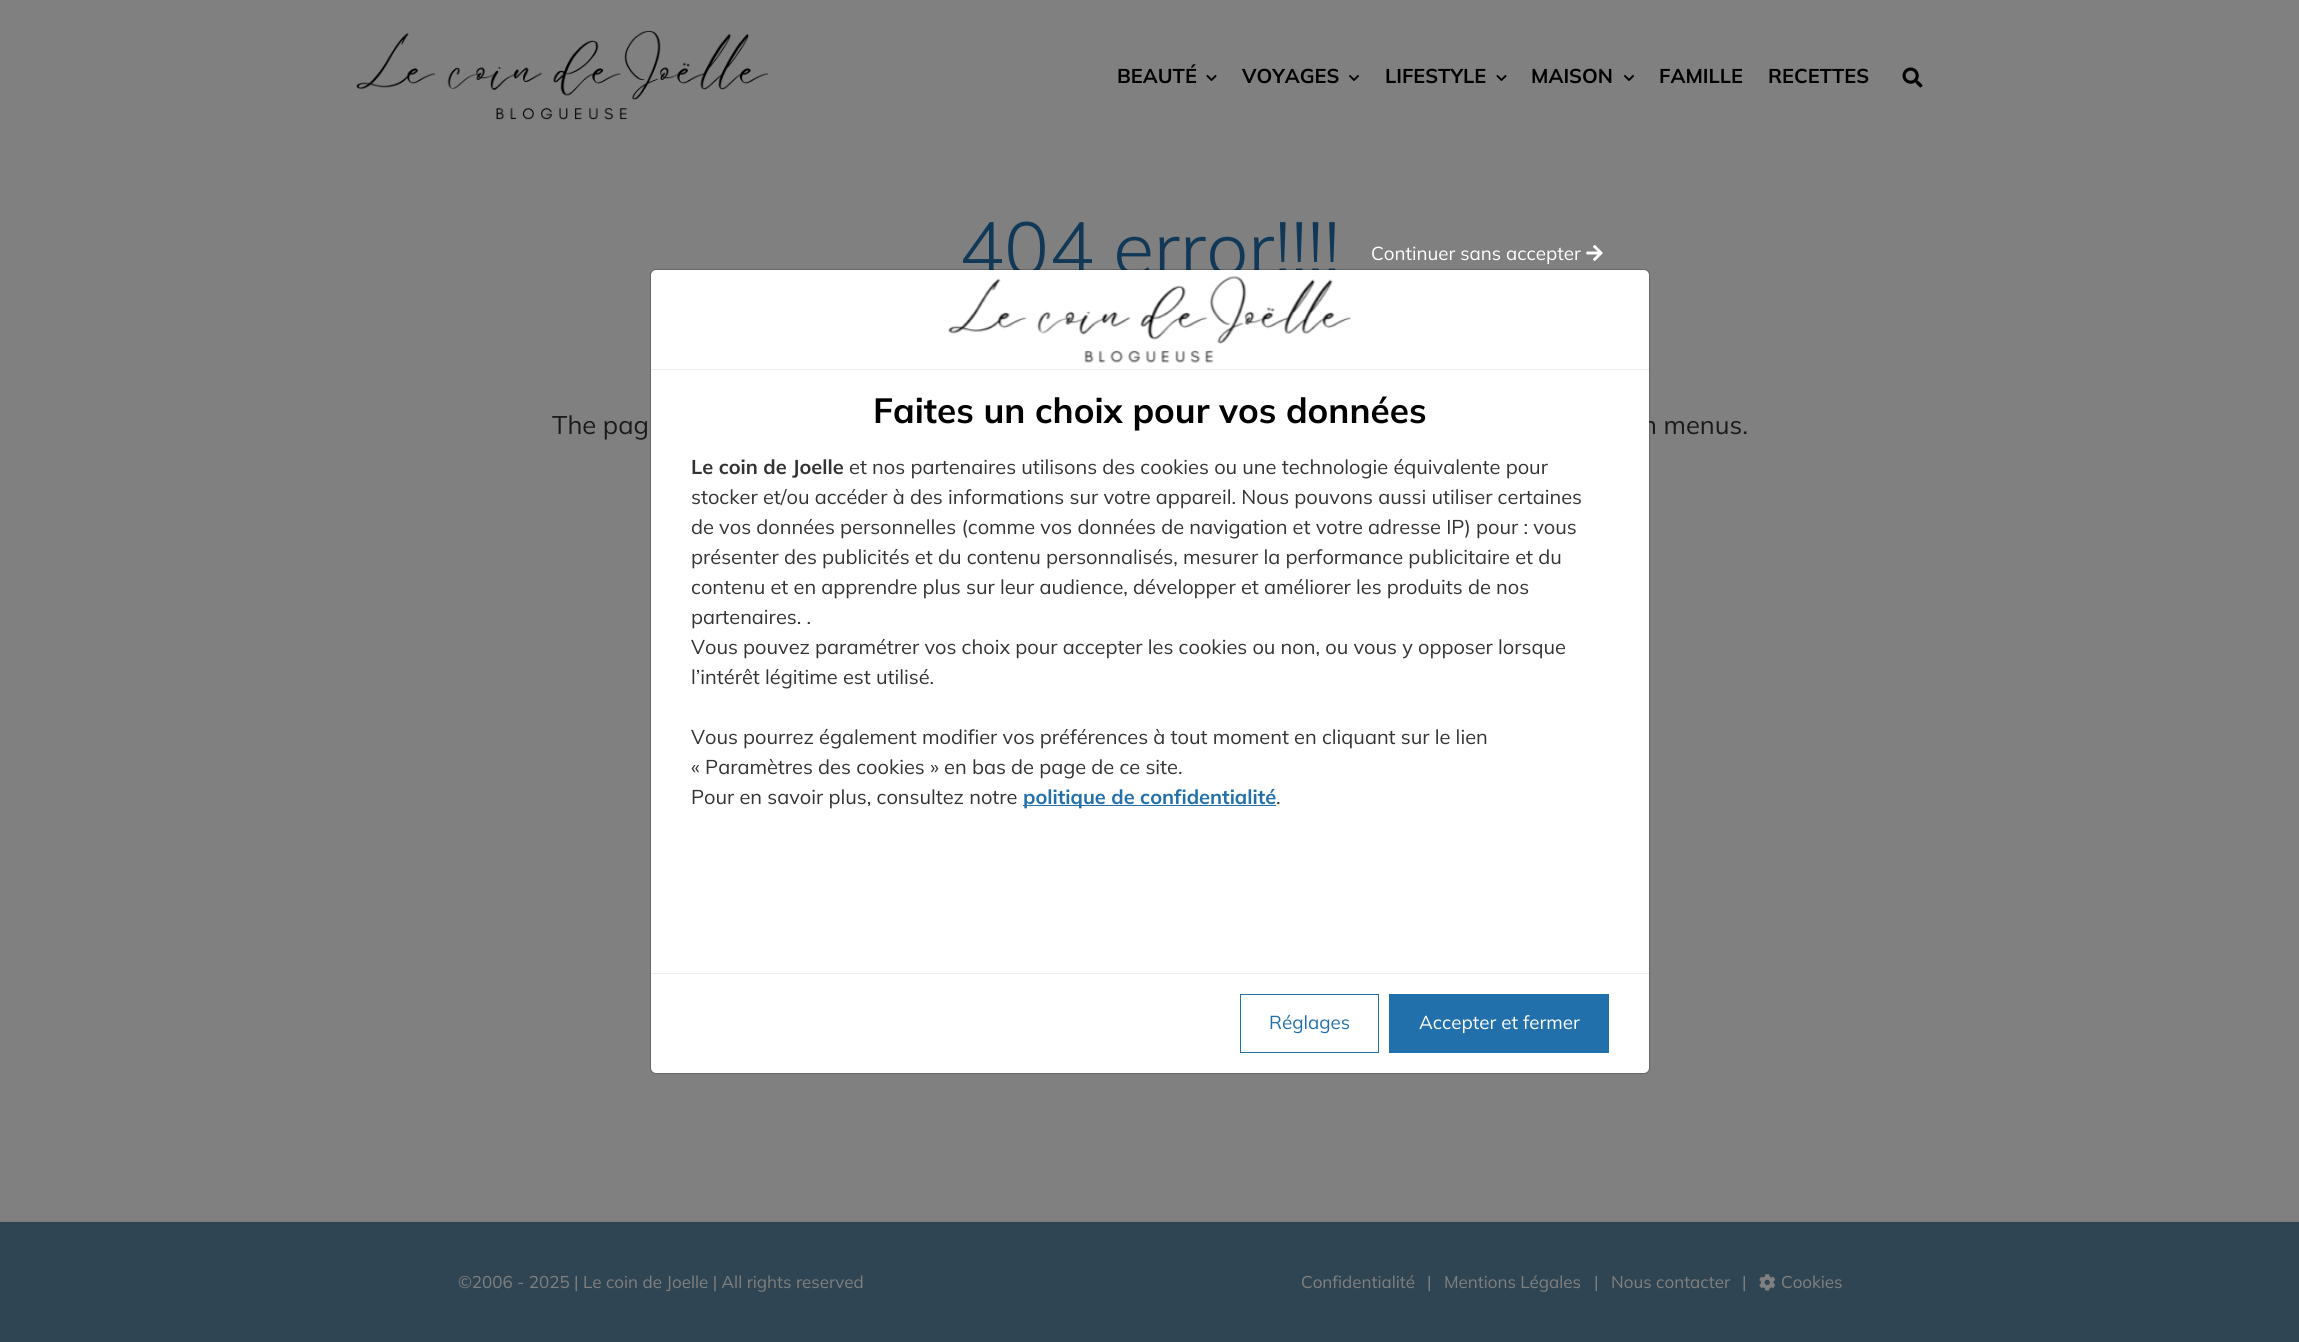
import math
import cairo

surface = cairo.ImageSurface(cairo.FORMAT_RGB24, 2299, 1342)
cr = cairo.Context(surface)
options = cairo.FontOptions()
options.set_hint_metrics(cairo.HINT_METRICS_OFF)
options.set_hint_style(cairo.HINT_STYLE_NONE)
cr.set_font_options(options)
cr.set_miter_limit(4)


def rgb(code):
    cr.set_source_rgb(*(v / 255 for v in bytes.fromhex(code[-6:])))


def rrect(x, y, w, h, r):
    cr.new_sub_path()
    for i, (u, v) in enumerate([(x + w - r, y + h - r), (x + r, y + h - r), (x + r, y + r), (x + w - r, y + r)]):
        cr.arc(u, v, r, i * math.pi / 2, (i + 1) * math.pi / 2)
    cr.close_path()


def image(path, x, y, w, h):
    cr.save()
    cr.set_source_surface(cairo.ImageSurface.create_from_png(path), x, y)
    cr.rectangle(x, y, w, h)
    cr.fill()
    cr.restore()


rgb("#808080")
cr.paint()
image("img/1.png", 356, 31, 412, 89)
image("img/2.png", 1206, 74, 11, 8)
image("img/3.png", 1349, 75, 10, 6)
image("img/2.png", 1496, 74, 11, 8)
image("img/3.png", 1624, 75, 10, 6)
image("img/4.png", 1902, 67, 21, 21)
rgb("#2f4553")
cr.rectangle(0, 1222, 2299, 120)
cr.fill()
rgb("#7b7c7d")
cr.rectangle(0, 1221, 2299, 1)
cr.fill()
image("img/5.png", 1759, 1274, 17, 17)
image("img/6.png", 1586, 245, 17, 16)
cr.select_font_face("Mulish", cairo.FONT_SLANT_NORMAL, cairo.FONT_WEIGHT_BOLD)
cr.set_font_size(20)
rgb("#000000")
for x, y, s in [
    (1117, 83, "BEAUTÉ"),
    (1242, 83, "VOYAGES"),
    (1385, 83, "LIFESTYLE"),
    (1531, 83, "MAISON"),
    (1659, 83, "FAMILLE"),
    (1768, 83, "RECETTES"),
]:
    cr.move_to(x, y)
    cr.show_text(s)
cr.select_font_face("Mulish Light")
cr.set_font_size(75)
rgb("#113856")
cr.move_to(959, 275)
cr.show_text("404 error!!!!")
cr.select_font_face("Mulish")
cr.set_font_size(25.5)
rgb("#1a1a1a")
cr.move_to(552, 434)
cr.show_text("The pag")
cr.move_to(1642, 434)
cr.show_text("n menus.")
cr.set_font_size(17)
rgb("#808080")
for x, y, s in [
    (458, 1288, "©2006 - 2025 | Le coin de Joelle | All rights reserved"),
    (1301, 1288, "Confidentialité"),
    (1427, 1288, "|"),
    (1444, 1288, "Mentions Légales"),
    (1594, 1288, "|"),
    (1611, 1288, "Nous contacter"),
    (1742, 1288, "|"),
    (1781, 1288, "Cookies"),
]:
    cr.move_to(x, y)
    cr.show_text(s)
rgb("#ffffff")
rrect(651, 270, 998, 803, 5)
cr.fill()
rrect(650.5, 269.5, 999, 804, 5.5)
cr.set_source_rgba(0, 0, 0, 0.2)
cr.set_line_width(1)
cr.stroke()
rgb("#e9ecef")
cr.rectangle(651, 973, 998, 1)
cr.fill()
cr.set_font_size(18.75)
rgb("#ffffff")
cr.move_to(1371, 260)
cr.show_text("Continuer sans accepter")
cr.rectangle(1240.5, 994.5, 138, 58)
rgb("#2270ab")
cr.stroke()
cr.move_to(1269, 1029)
cr.show_text("Réglages")
cr.rectangle(1389, 994, 220, 59)
cr.fill()
rgb("#ffffff")
cr.move_to(1419, 1029)
cr.show_text("Accepter et fermer")
cr.select_font_face("Mulish", cairo.FONT_SLANT_NORMAL, cairo.FONT_WEIGHT_BOLD)
cr.set_font_size(35)
rgb("#000000")
cr.move_to(873, 423)
cr.show_text("Faites un choix pour vos données")
cr.set_font_size(20)
rgb("#333333")
cr.move_to(691, 474)
cr.show_text("Le coin de Joelle")
cr.select_font_face("Mulish")
for x, y, s in [
    (849, 474, "et nos partenaires utilisons des cookies ou une technologie équivalente pour"),
    (691, 504, "stocker et/ou accéder à des informations sur votre appareil. Nous pouvons aussi utiliser certaines"),
    (691, 534, "de vos données personnelles (comme vos données de navigation et votre adresse IP) pour : vous"),
    (691, 564, "présenter des publicités et du contenu personnalisés, mesurer la performance publicitaire et du"),
    (691, 594, "contenu et en apprendre plus sur leur audience, développer et améliorer les produits de nos"),
    (691, 624, "partenaires. ."),
    (691, 654, "Vous pouvez paramétrer vos choix pour accepter les cookies ou non, ou vous y opposer lorsque"),
    (691, 684, "l’intérêt légitime est utilisé."),
    (691, 744, "Vous pourrez également modifier vos préférences à tout moment en cliquant sur le lien"),
    (691, 774, "« Paramètres des cookies » en bas de page de ce site."),
    (691, 804, "Pour en savoir plus, consultez notre"),
]:
    cr.move_to(x, y)
    cr.show_text(s)
rgb("#2270ab")
cr.rectangle(1023, 805, 253, 1)
cr.fill()
cr.select_font_face("Mulish", cairo.FONT_SLANT_NORMAL, cairo.FONT_WEIGHT_BOLD)
cr.move_to(1023, 804)
cr.show_text("politique de confidentialité")
cr.select_font_face("Mulish")
rgb("#333333")
cr.move_to(1276, 804)
cr.show_text(".")
rgb("#e9ecef")
cr.rectangle(651, 369, 998, 1)
cr.fill()
image("img/7.png", 948, 276, 404, 87)
surface.write_to_png("page.png")
